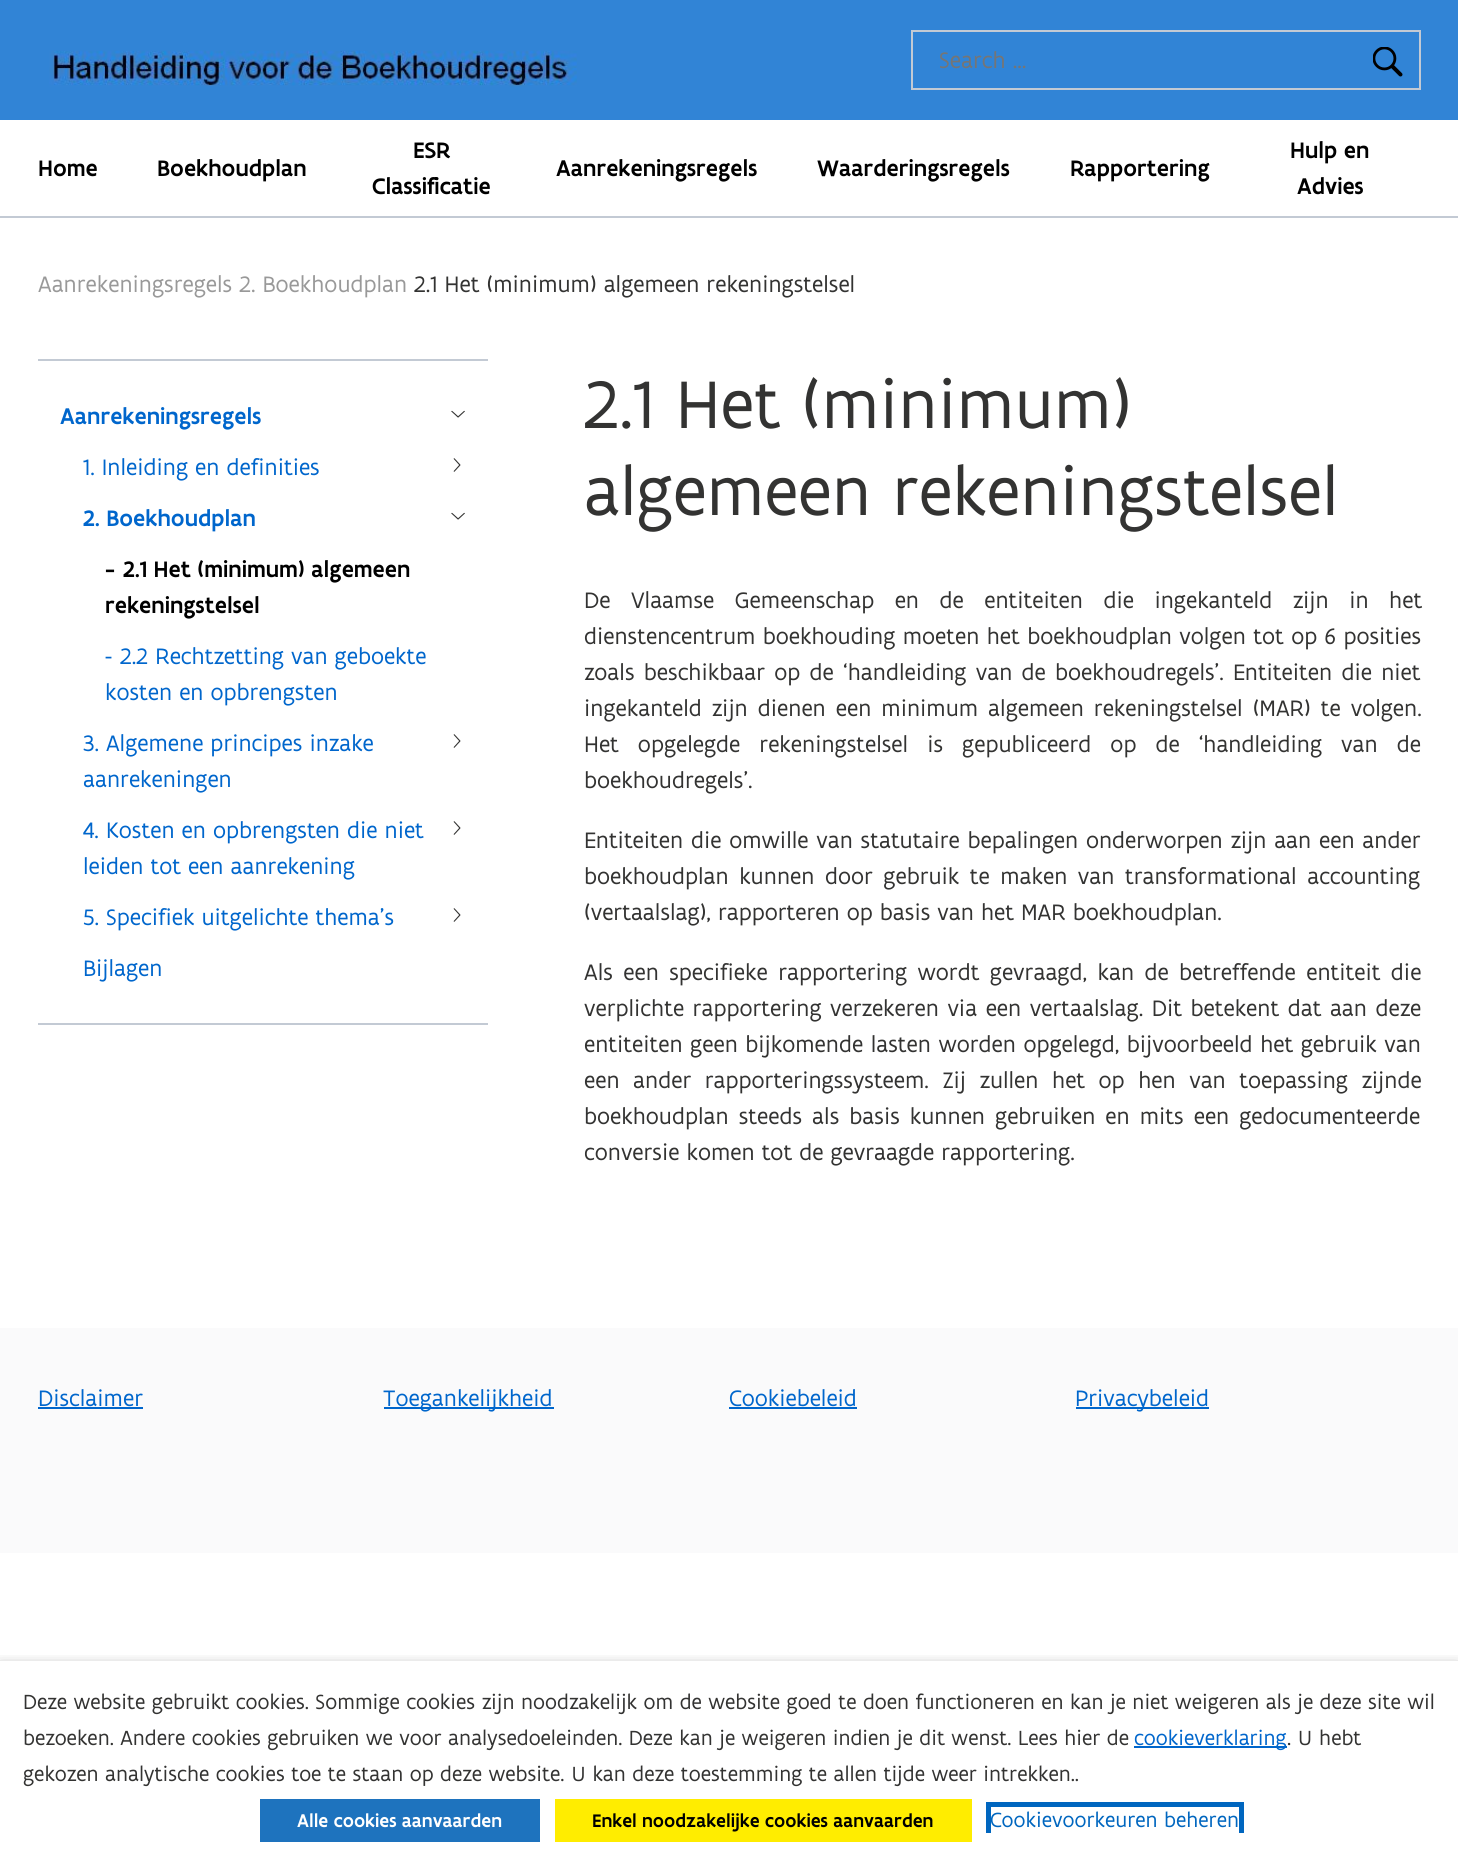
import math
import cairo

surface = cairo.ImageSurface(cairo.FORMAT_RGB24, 1458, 1872)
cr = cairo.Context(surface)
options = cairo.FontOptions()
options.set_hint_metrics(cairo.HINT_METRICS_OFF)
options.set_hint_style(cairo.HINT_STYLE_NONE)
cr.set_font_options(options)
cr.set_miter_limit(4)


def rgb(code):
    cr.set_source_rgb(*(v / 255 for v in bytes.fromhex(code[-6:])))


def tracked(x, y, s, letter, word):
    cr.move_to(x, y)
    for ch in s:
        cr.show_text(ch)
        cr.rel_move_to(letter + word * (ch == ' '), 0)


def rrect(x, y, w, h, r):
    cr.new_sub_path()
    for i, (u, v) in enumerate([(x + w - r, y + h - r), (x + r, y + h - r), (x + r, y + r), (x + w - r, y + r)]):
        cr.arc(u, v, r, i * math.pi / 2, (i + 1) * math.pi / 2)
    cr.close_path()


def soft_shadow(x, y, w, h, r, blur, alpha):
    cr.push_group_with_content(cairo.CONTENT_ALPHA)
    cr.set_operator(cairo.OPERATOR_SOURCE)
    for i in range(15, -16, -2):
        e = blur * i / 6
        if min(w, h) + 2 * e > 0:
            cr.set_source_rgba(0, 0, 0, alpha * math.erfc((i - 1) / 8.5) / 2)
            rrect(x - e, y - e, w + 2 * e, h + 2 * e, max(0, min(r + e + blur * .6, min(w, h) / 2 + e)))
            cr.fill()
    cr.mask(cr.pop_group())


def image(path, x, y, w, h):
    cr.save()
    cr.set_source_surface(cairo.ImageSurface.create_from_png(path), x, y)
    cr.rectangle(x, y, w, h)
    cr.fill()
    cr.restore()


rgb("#ffffff")
cr.paint()
rgb("#3184d6")
cr.rectangle(0, 0, 1458, 120)
cr.fill()
image("img/1.png", 49, 50, 528, 37)
cr.rectangle(912, 31, 508, 58)
rgb("#c3cad4")
cr.stroke()
image("img/2.png", 1373, 47, 30, 30)
for x, y, w, h, color in [
    (0, 216, 1458, 2, "#c3cad4"),
    (38, 359, 450, 2, "#c3cad4"),
    (38, 1023, 450, 2, "#c3cad4"),
]:
    rgb(color)
    cr.rectangle(x, y, w, h)
    cr.fill()
image("img/3.png", 451, 410, 14, 8)
image("img/4.png", 453, 458, 8, 14)
image("img/3.png", 451, 512, 14, 8)
image("img/4.png", 453, 734, 8, 14)
image("img/4.png", 453, 821, 8, 14)
image("img/4.png", 453, 908, 8, 14)
for x, y, w, h, color in [
    (0, 1328, 1458, 225, "#fafafb"),
    (38, 1407, 105, 2, "#0066cc"),
    (384, 1407, 170, 2, "#0066cc"),
    (729, 1407, 128, 2, "#0066cc"),
    (1076, 1407, 133, 2, "#0066cc"),
]:
    rgb(color)
    cr.rectangle(x, y, w, h)
    cr.fill()
cr.save()
cr.rectangle(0, 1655, 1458, 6)
cr.clip()
rgb("#000000")
soft_shadow(0, 1668, 1458, 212, 0, 7.5, 0.5)
cr.restore()
for x, y, w, h, color in [
    (1134, 1746, 153, 2, "#0066cc"),
    (260, 1799, 280, 43, "#1e73be"),
    (555, 1799, 417, 43, "#ffed00"),
    (986, 1802, 258, 5, "#0066bf"),
    (1239, 1802, 5, 31, "#0066bf"),
    (986, 1802, 5, 31, "#0066bf"),
]:
    rgb(color)
    cr.rectangle(x, y, w, h)
    cr.fill()
cr.select_font_face("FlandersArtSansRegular")
cr.set_font_size(24)
rgb("#757575")
cr.move_to(939, 68)
cr.show_text("Search …")
cr.select_font_face("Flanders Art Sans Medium")
rgb("#000000")
for x, y, s in [
    (38, 176, "Home"),
    (157, 176, "Boekhoudplan"),
    (413, 158, "ESR"),
    (372, 194, "Classificatie"),
    (556, 176, "Aanrekeningsregels"),
    (817, 176, "Waarderingsregels"),
    (1070, 176, "Rapportering"),
    (1290, 158, "Hulp en"),
    (1297, 194, "Advies"),
]:
    cr.move_to(x, y)
    cr.show_text(s)
cr.select_font_face("FlandersArtSansRegular")
rgb("#999999")
cr.move_to(38, 292)
cr.show_text("Aanrekeningsregels 2. Boekhoudplan")
rgb("#333332")
cr.move_to(414, 292)
cr.show_text("2.1 Het (minimum) algemeen rekeningstelsel")
cr.select_font_face("Flanders Art Sans Medium")
rgb("#0066cc")
cr.move_to(60, 424)
cr.show_text("Aanrekeningsregels")
cr.select_font_face("FlandersArtSansRegular")
cr.move_to(83, 475)
cr.show_text("1. Inleiding en definities")
cr.select_font_face("Flanders Art Sans Medium")
cr.move_to(83, 526)
cr.show_text("2. Boekhoudplan")
rgb("#000000")
for x, y, s in [
    (105, 577, "-"),
    (123, 577, "2.1 Het (minimum) algemeen"),
    (105, 613, "rekeningstelsel"),
]:
    cr.move_to(x, y)
    cr.show_text(s)
cr.select_font_face("FlandersArtSansRegular")
rgb("#0066cc")
for x, y, s in [
    (105, 664, "-"),
    (120, 664, "2.2 Rechtzetting van geboekte"),
    (105, 700, "kosten en opbrengsten"),
    (83, 751, "3. Algemene principes inzake"),
    (83, 787, "aanrekeningen"),
    (83, 838, "4. Kosten en opbrengsten die niet"),
    (83, 874, "leiden tot een aanrekening"),
    (83, 925, "5. Specifiek uitgelichte thema’s"),
    (83, 976, "Bijlagen"),
]:
    cr.move_to(x, y)
    cr.show_text(s)
cr.set_font_size(72)
rgb("#333332")
cr.move_to(584, 428)
cr.show_text("2.1 Het (minimum)")
cr.move_to(584, 515)
cr.show_text("algemeen rekeningstelsel")
cr.set_font_size(24)
tracked(584, 608, "De Vlaamse Gemeenschap en de entiteiten die ingekanteld zijn in het", 0, 13.5)
tracked(584, 644, "dienstencentrum boekhouding moeten het boekhoudplan volgen tot op 6 posities", 0, 0.4)
tracked(584, 680, "zoals beschikbaar op de ‘handleiding van de boekhoudregels’. Entiteiten die niet", 0, 2.25)
tracked(584, 716, "ingekanteld zijn dienen een minimum algemeen rekeningstelsel (MAR) te volgen.", 0, 3)
tracked(584, 752, "Het opgelegde rekeningstelsel is gepubliceerd op de ‘handleiding van de", 0, 12)
cr.move_to(584, 788)
cr.show_text("boekhoudregels’.")
tracked(584, 848, "Entiteiten die omwille van statutaire bepalingen onderworpen zijn aan een ander", 0, 0.75)
tracked(584, 884, "boekhoudplan kunnen door gebruik te maken van transformational accounting", 0, 3.5)
cr.move_to(584, 920)
cr.show_text("(vertaalslag), rapporteren op basis van het MAR boekhoudplan.")
tracked(584, 980, "Als een specifieke rapportering wordt gevraagd, kan de betreffende entiteit die", 0, 3.4)
tracked(584, 1016, "verplichte rapportering verzekeren via een vertaalslag. Dit betekent dat aan deze", 0, 1.5)
tracked(584, 1052, "entiteiten geen bijkomende lasten worden opgelegd, bijvoorbeeld het gebruik van", 0, 0.5)
tracked(584, 1088, "een ander rapporteringssysteem. Zij zullen het op hen van toepassing zijnde", 0, 6.5)
tracked(584, 1124, "boekhoudplan steeds als basis kunnen gebruiken en mits een gedocumenteerde", 0, 3)
cr.move_to(584, 1160)
cr.show_text("conversie komen tot de gevraagde rapportering.")
rgb("#0066cc")
for x, y, s in [
    (38, 1406, "Disclaimer"),
    (383, 1406, "Toegankelijkheid"),
    (729, 1406, "Cookiebeleid"),
    (1075, 1406, "Privacybeleid"),
]:
    cr.move_to(x, y)
    cr.show_text(s)
cr.set_font_size(22)
rgb("#333332")
cr.move_to(23, 1709)
cr.show_text("Deze website gebruikt cookies. Sommige cookies zijn noodzakelijk om de website goed te doen functioneren en kan je niet weigeren als je deze site wil")
cr.move_to(23, 1745)
cr.show_text("bezoeken. Andere cookies gebruiken we voor analysedoeleinden. Deze kan je weigeren indien je dit wenst. Lees hier de")
rgb("#0066cc")
cr.move_to(1134, 1745)
cr.show_text("cookieverklaring")
rgb("#333332")
cr.move_to(1287, 1745)
cr.show_text(". U hebt")
cr.move_to(23, 1781)
cr.show_text("gekozen analytische cookies toe te staan op deze website. U kan deze toestemming te allen tijde weer intrekken..")
cr.select_font_face("Flanders Art Sans Medium")
cr.set_font_size(19.5)
rgb("#ffffff")
cr.move_to(297, 1827)
cr.show_text("Alle cookies aanvaarden")
rgb("#000000")
cr.move_to(592, 1827)
cr.show_text("Enkel noodzakelijke cookies aanvaarden")
cr.select_font_face("FlandersArtSansRegular")
cr.set_font_size(22)
rgb("#0066bf")
cr.move_to(990, 1827)
cr.show_text("Cookievoorkeuren beheren")
surface.write_to_png("page.png")
